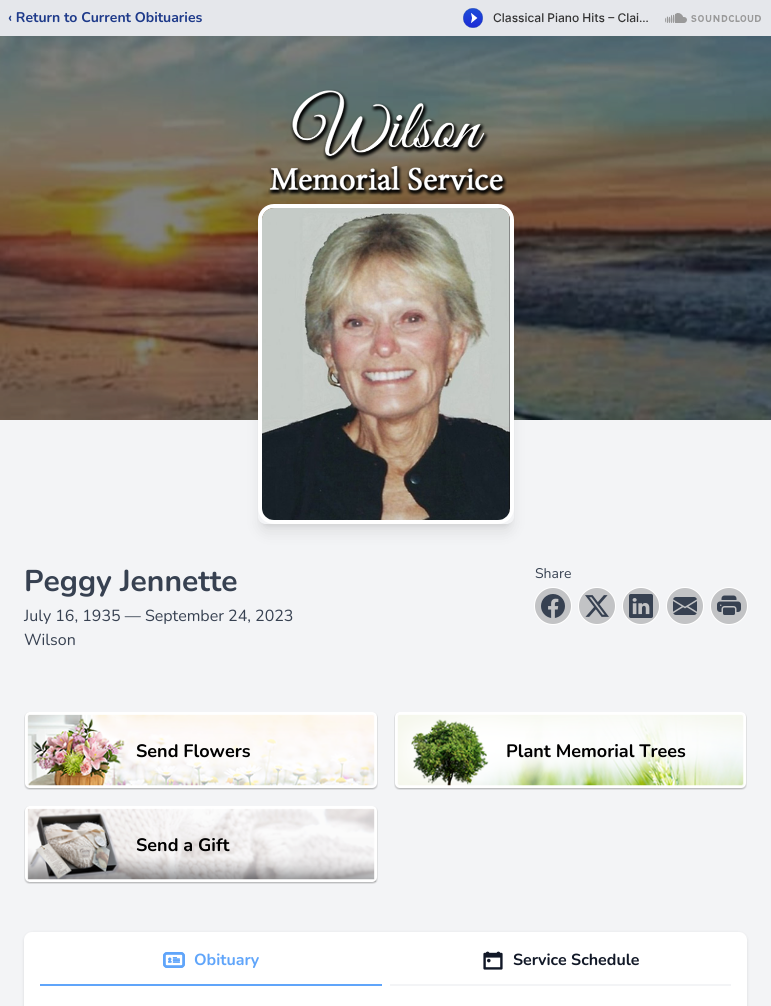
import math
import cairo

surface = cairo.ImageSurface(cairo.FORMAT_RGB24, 771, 1006)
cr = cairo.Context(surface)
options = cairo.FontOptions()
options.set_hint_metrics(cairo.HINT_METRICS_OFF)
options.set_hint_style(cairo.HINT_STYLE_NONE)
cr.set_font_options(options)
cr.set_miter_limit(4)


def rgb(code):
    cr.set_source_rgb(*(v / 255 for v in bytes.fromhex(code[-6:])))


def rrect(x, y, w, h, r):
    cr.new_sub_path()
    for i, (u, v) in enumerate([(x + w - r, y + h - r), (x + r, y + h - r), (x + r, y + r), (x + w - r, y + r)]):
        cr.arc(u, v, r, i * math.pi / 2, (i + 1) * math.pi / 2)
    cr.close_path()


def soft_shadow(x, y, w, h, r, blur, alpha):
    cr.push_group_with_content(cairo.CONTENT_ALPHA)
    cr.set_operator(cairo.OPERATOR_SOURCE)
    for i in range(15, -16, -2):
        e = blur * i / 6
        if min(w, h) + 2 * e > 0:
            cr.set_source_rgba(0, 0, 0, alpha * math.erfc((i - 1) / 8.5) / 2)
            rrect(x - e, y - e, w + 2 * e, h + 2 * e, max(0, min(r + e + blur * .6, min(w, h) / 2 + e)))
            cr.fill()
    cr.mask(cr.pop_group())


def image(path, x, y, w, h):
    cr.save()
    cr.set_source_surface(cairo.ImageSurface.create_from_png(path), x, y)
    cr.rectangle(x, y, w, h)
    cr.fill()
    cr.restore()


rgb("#f3f4f6")
cr.paint()
rgb("#e5e7eb")
cr.rectangle(0, 0, 771, 36)
cr.fill()
image("img/1.png", 463, 8, 298, 20)
image("img/2.png", 0, 36, 771, 384)
image("img/3.png", 268, 89, 239, 107)
cr.save()
cr.set_fill_rule(cairo.FILL_RULE_EVEN_ODD)
cr.new_path()
cr.move_to(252, 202)
cr.line_to(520, 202)
cr.line_to(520, 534)
cr.line_to(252, 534)
cr.close_path()
cr.move_to(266, 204)
cr.line_to(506, 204)
cr.curve_to(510.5, 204, 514, 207.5, 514, 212)
cr.line_to(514, 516)
cr.curve_to(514, 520.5, 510.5, 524, 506, 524)
cr.line_to(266, 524)
cr.curve_to(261.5, 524, 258, 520.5, 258, 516)
cr.line_to(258, 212)
cr.curve_to(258, 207.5, 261.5, 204, 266, 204)
cr.close_path()
cr.clip()
rgb("#000000")
soft_shadow(262, 212, 248, 312, 4, 3, 0.1)
cr.restore()
cr.save()
cr.set_fill_rule(cairo.FILL_RULE_EVEN_ODD)
cr.new_path()
cr.move_to(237, 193)
cr.line_to(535, 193)
cr.line_to(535, 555)
cr.line_to(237, 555)
cr.close_path()
cr.move_to(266, 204)
cr.line_to(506, 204)
cr.curve_to(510.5, 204, 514, 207.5, 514, 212)
cr.line_to(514, 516)
cr.curve_to(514, 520.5, 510.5, 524, 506, 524)
cr.line_to(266, 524)
cr.curve_to(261.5, 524, 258, 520.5, 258, 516)
cr.line_to(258, 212)
cr.curve_to(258, 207.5, 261.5, 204, 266, 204)
cr.close_path()
cr.clip()
rgb("#000000")
soft_shadow(261, 217, 250, 314, 5, 7.5, 0.1)
cr.restore()
rrect(260, 206, 252, 316, 14)
rgb("#ffffff")
cr.set_line_width(4)
cr.stroke()
image("img/4.png", 262, 208, 248, 312)
cr.arc(553, 606, 18.5, 0, 2 * math.pi)
cr.set_line_width(1)
cr.stroke()
cr.set_source_rgba(0, 0, 0, 0.2)
cr.arc(553, 606, 18, 0, 2 * math.pi)
cr.fill()
image("img/5.png", 541, 594, 24, 24)
cr.arc(597, 606, 18.5, 0, 2 * math.pi)
rgb("#ffffff")
cr.stroke()
cr.set_source_rgba(0, 0, 0, 0.2)
cr.arc(597, 606, 18, 0, 2 * math.pi)
cr.fill()
image("img/6.png", 585, 595, 24, 22)
cr.arc(641, 606, 18.5, 0, 2 * math.pi)
rgb("#ffffff")
cr.stroke()
cr.set_source_rgba(0, 0, 0, 0.2)
cr.arc(641, 606, 18, 0, 2 * math.pi)
cr.fill()
image("img/7.png", 629, 594, 24, 24)
cr.arc(685, 606, 18.5, 0, 2 * math.pi)
rgb("#ffffff")
cr.stroke()
cr.set_source_rgba(0, 0, 0, 0.2)
cr.arc(685, 606, 18, 0, 2 * math.pi)
cr.fill()
image("img/8.png", 673, 597, 24, 18)
cr.arc(729, 606, 18.5, 0, 2 * math.pi)
rgb("#ffffff")
cr.stroke()
cr.set_source_rgba(0, 0, 0, 0.2)
cr.arc(729, 606, 18, 0, 2 * math.pi)
cr.fill()
image("img/9.png", 717, 595, 24, 20)
image("img/10.png", 24, 712, 354, 78)
image("img/11.png", 394, 712, 353, 78)
image("img/12.png", 24, 806, 354, 78)
rgb("#000000")
soft_shadow(24, 933, 723, 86, 8, 1.5, 0.1)
rgb("#ffffff")
rrect(24, 932, 723, 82, 8)
cr.fill()
rgb("#60a5fa")
cr.rectangle(40, 984, 342, 2)
cr.fill()
image("img/13.png", 163, 952, 22, 16)
rgb("#f3f4f6")
cr.rectangle(390, 984, 341, 2)
cr.fill()
image("img/14.png", 483, 951, 20, 19)
cr.select_font_face("Nunito", cairo.FONT_SLANT_NORMAL, cairo.FONT_WEIGHT_BOLD)
cr.set_font_size(14)
rgb("#1e3a8a")
cr.move_to(8, 22)
cr.show_text("‹ Return to Current Obituaries")
cr.set_font_size(30)
rgb("#374151")
cr.move_to(24, 591)
cr.show_text("Peggy Jennette")
cr.select_font_face("Nunito")
cr.set_font_size(16)
cr.move_to(24, 621)
cr.show_text("July 16, 1935 — September 24, 2023")
cr.move_to(24, 645)
cr.show_text("Wilson")
cr.set_font_size(14)
cr.move_to(535, 578)
cr.show_text("Share")
cr.select_font_face("Nunito", cairo.FONT_SLANT_NORMAL, cairo.FONT_WEIGHT_BOLD)
cr.set_font_size(18)
rgb("#000000")
for x, y, s in [
    (136, 757, "Send Flowers"),
    (506, 757, "Plant Memorial Trees"),
    (136, 851, "Send a Gift"),
]:
    cr.move_to(x, y)
    cr.show_text(s)
cr.set_font_size(16)
rgb("#60a5fa")
cr.move_to(194, 965)
cr.show_text("Obituary")
rgb("#111827")
cr.move_to(513, 965)
cr.show_text("Service Schedule")
surface.write_to_png("page.png")
